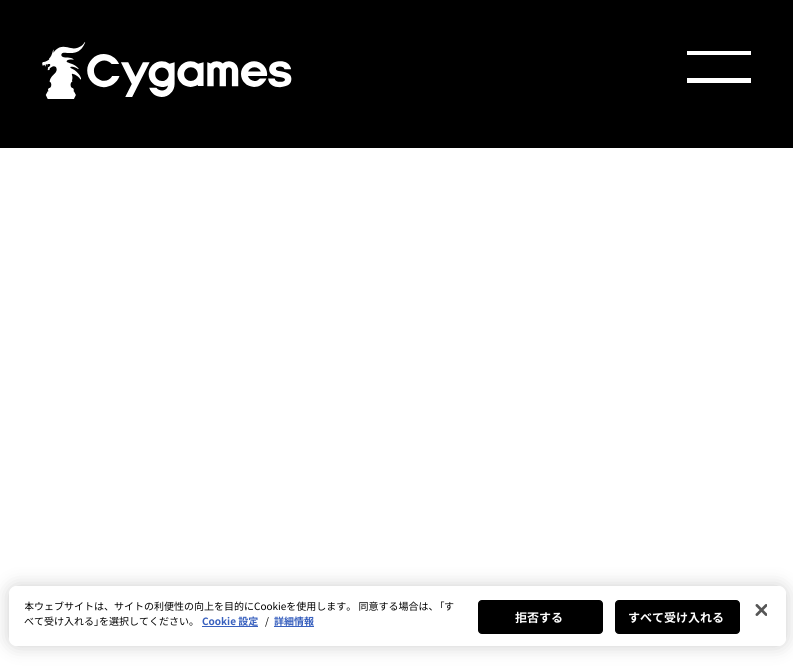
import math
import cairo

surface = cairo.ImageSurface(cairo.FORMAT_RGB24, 793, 666)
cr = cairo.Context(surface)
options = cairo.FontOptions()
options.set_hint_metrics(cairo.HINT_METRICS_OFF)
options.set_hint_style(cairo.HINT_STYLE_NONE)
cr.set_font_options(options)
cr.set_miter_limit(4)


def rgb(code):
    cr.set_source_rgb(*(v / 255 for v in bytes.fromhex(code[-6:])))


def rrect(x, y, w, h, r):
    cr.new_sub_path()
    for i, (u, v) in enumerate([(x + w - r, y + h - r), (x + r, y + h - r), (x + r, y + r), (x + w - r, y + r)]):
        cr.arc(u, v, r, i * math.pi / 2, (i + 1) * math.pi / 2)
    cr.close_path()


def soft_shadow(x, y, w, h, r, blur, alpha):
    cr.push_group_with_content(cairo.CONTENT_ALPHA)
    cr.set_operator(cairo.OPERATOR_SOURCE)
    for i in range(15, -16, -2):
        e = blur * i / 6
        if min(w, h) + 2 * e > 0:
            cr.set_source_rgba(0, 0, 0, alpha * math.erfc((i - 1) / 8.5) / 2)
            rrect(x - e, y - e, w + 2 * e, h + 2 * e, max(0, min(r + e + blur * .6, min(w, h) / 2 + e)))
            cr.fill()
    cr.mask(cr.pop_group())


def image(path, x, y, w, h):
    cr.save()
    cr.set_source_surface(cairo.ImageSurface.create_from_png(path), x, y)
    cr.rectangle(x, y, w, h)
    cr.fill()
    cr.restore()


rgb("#ffffff")
cr.paint()
rgb("#000000")
cr.rectangle(0, 0, 793, 148)
cr.fill()
image("img/1.png", 42, 42, 250, 57)
rgb("#ffffff")
cr.rectangle(687, 51, 64, 4)
cr.fill()
cr.rectangle(687, 78, 64, 5)
cr.fill()
cr.save()
cr.set_fill_rule(cairo.FILL_RULE_EVEN_ODD)
cr.new_path()
cr.move_to(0, 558)
cr.line_to(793, 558)
cr.line_to(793, 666)
cr.line_to(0, 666)
cr.close_path()
cr.move_to(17, 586)
cr.line_to(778, 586)
cr.curve_to(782.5, 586, 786, 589.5, 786, 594)
cr.line_to(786, 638)
cr.curve_to(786, 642.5, 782.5, 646, 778, 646)
cr.line_to(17, 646)
cr.curve_to(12.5, 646, 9, 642.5, 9, 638)
cr.line_to(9, 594)
cr.curve_to(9, 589.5, 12.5, 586, 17, 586)
cr.close_path()
cr.clip()
rgb("#000000")
soft_shadow(9, 586, 777, 60, 8, 9, 0.2)
cr.restore()
cr.set_source_rgba(1, 1, 1, 0.8)
rrect(9, 586, 777, 60, 8)
cr.fill()
rgb("#3860be")
cr.rectangle(202, 626, 56, 1)
cr.fill()
cr.rectangle(274, 626, 40, 1)
cr.fill()
rgb("#000000")
rrect(478.5, 600.5, 124, 33, 3.5)
cr.fill_preserve()
cr.set_line_width(1)
cr.stroke()
rrect(615.5, 600.5, 124, 33, 3.5)
cr.fill_preserve()
cr.stroke()
image("img/2.png", 755, 604, 12, 12)
cr.save()
cr.rectangle(25, 598, 437, 30)
cr.clip()
cr.select_font_face("Noto Sans JP")
cr.set_font_size(10)
cr.move_to(24, 610)
cr.show_text("本ウェブサイトは、サイトの利便性の向上を目的にCookieを使用します。 同意する場合は、")
cr.restore()
cr.select_font_face("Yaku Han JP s")
cr.set_font_size(10)
cr.move_to(439, 610)
cr.show_text("「")
cr.select_font_face("Noto Sans JP")
cr.move_to(444, 610)
cr.show_text("す")
cr.move_to(24, 625)
cr.show_text("べて受け入れる")
cr.select_font_face("Yaku Han JP s")
cr.move_to(94, 625)
cr.show_text("」")
cr.select_font_face("Noto Sans JP")
cr.move_to(99, 625)
cr.show_text("を選択してください。")
cr.select_font_face("Noto Sans JP", cairo.FONT_SLANT_NORMAL, cairo.FONT_WEIGHT_BOLD)
rgb("#3860be")
cr.move_to(202, 625)
cr.show_text("Cookie 設定")
cr.select_font_face("Noto Sans JP")
rgb("#000000")
cr.move_to(265, 625)
cr.show_text("/")
cr.select_font_face("Noto Sans JP", cairo.FONT_SLANT_NORMAL, cairo.FONT_WEIGHT_BOLD)
rgb("#3860be")
cr.move_to(274, 625)
cr.show_text("詳細情報")
cr.set_font_size(12)
rgb("#ffffff")
cr.move_to(515, 622)
cr.show_text("拒否する")
cr.move_to(628, 622)
cr.show_text("すべて受け入れる")
surface.write_to_png("page.png")
